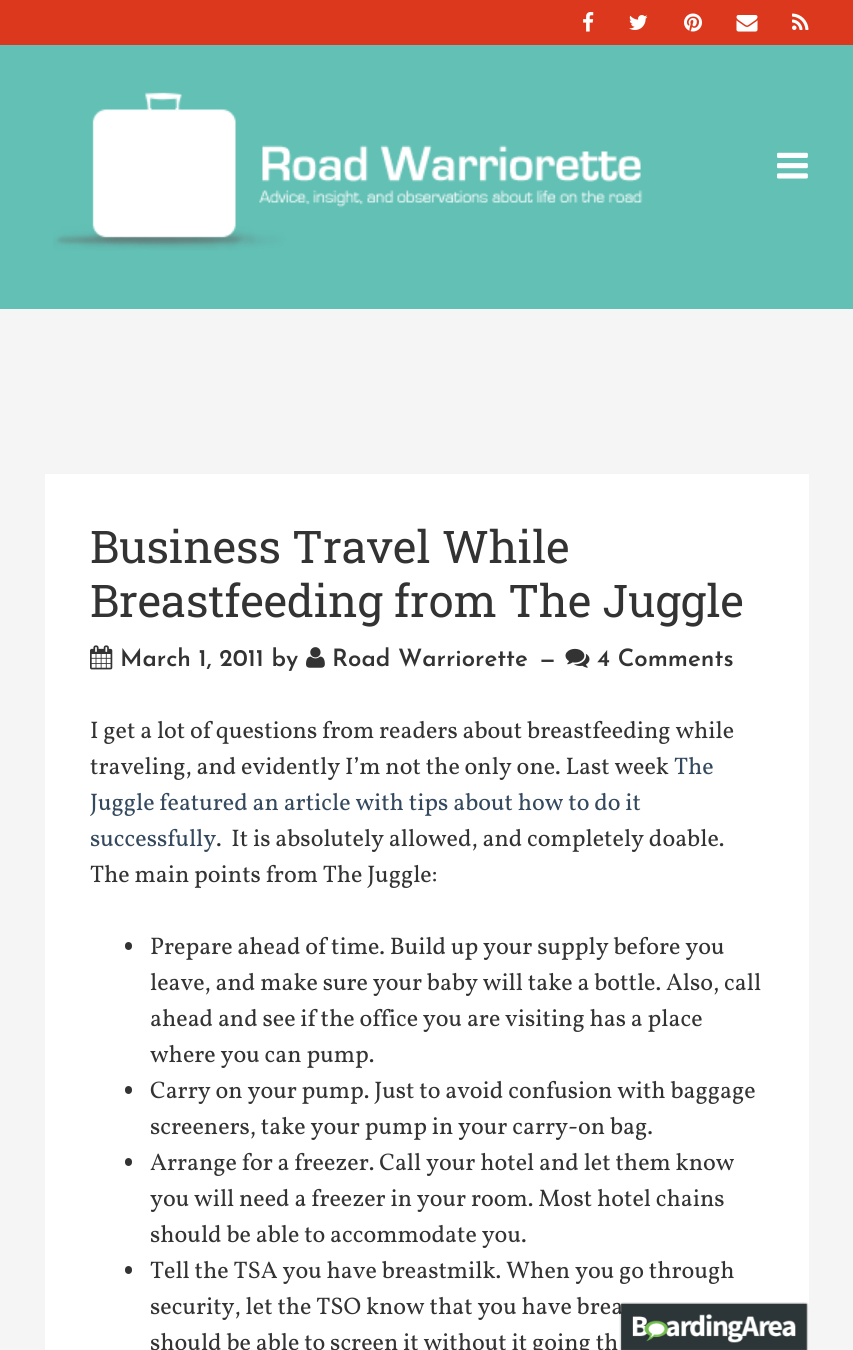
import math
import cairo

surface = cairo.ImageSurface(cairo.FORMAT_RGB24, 853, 1350)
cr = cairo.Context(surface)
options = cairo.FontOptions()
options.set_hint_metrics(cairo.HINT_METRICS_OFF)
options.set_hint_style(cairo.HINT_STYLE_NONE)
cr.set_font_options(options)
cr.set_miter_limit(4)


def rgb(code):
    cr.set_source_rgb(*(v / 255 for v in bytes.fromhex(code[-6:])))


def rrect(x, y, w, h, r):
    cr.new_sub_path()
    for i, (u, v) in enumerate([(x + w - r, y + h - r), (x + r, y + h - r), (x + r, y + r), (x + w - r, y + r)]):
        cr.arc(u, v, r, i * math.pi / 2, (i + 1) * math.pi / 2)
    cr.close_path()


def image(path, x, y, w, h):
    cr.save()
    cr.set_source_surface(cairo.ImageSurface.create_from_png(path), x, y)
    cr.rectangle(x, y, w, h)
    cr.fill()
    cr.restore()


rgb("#f5f5f5")
cr.paint()
rgb("#dc381d")
cr.rectangle(0, 0, 853, 45)
cr.fill()
image("img/1.png", 583, 12, 11, 20)
image("img/2.png", 629, 15, 19, 15)
image("img/3.png", 684, 13, 18, 19)
image("img/4.png", 736, 15, 22, 17)
image("img/5.png", 792, 13, 17, 17)
rgb("#62c0b5")
cr.rectangle(0, 45, 853, 264)
cr.fill()
image("img/6.png", 53, 92, 590, 159)
image("img/7.png", 777, 152, 31, 27)
rgb("#ffffff")
cr.rectangle(45, 474, 764, 876)
cr.fill()
image("img/8.png", 90, 645, 23, 25)
image("img/9.png", 306, 647, 19, 21)
image("img/10.png", 565, 648, 25, 20)
rgb("#333333")
rrect(125, 942, 7, 8, 3.5)
cr.fill()
rrect(125, 1086, 7, 8, 3.5)
cr.fill()
rrect(125, 1158, 7, 8, 3.5)
cr.fill()
rrect(125, 1266, 7, 8, 3.5)
cr.fill()
cr.select_font_face("Roboto Slab")
cr.set_font_size(45)
cr.move_to(90, 563)
cr.show_text("Business Travel While")
cr.move_to(90, 617)
cr.show_text("Breastfeeding from The Juggle")
cr.select_font_face("Josefin Sans SemiBold")
cr.set_font_size(24)
for x, y, s in [
    (120, 666, "March 1, 2011 by"),
    (332, 666, "Road Warriorette"),
    (539, 666, "—"),
    (597, 666, "4 Comments"),
]:
    cr.move_to(x, y)
    cr.show_text(s)
cr.select_font_face("Vollkorn")
cr.move_to(90, 738)
cr.show_text("I get a lot of questions from readers about breastfeeding while")
cr.move_to(90, 774)
cr.show_text("traveling, and evidently I’m not the only one. Last week")
rgb("#34495e")
for x, y, s in [
    (674, 774, "The"),
    (90, 810, "Juggle featured an article with tips about how to do it"),
    (90, 846, "successfully"),
]:
    cr.move_to(x, y)
    cr.show_text(s)
rgb("#333333")
for x, y, s in [
    (216, 846, ".  It is absolutely allowed, and completely doable."),
    (90, 882, "The main points from The Juggle:"),
    (150, 954, "Prepare ahead of time. Build up your supply before you"),
    (150, 990, "leave, and make sure your baby will take a bottle. Also, call"),
    (150, 1026, "ahead and see if the office you are visiting has a place"),
    (150, 1062, "where you can pump."),
    (150, 1098, "Carry on your pump. Just to avoid confusion with baggage"),
    (150, 1134, "screeners, take your pump in your carry-on bag."),
    (150, 1170, "Arrange for a freezer. Call your hotel and let them know"),
    (150, 1206, "you will need a freezer in your room. Most hotel chains"),
    (150, 1242, "should be able to accommodate you."),
    (150, 1278, "Tell the TSA you have breastmilk. When you go through"),
    (150, 1314, "security, let the TSO know that you have brea"),
    (150, 1350, "should be able to screen it without it going th"),
]:
    cr.move_to(x, y)
    cr.show_text(s)
image("img/11.png", 619, 1302, 190, 48)
surface.write_to_png("page.png")
